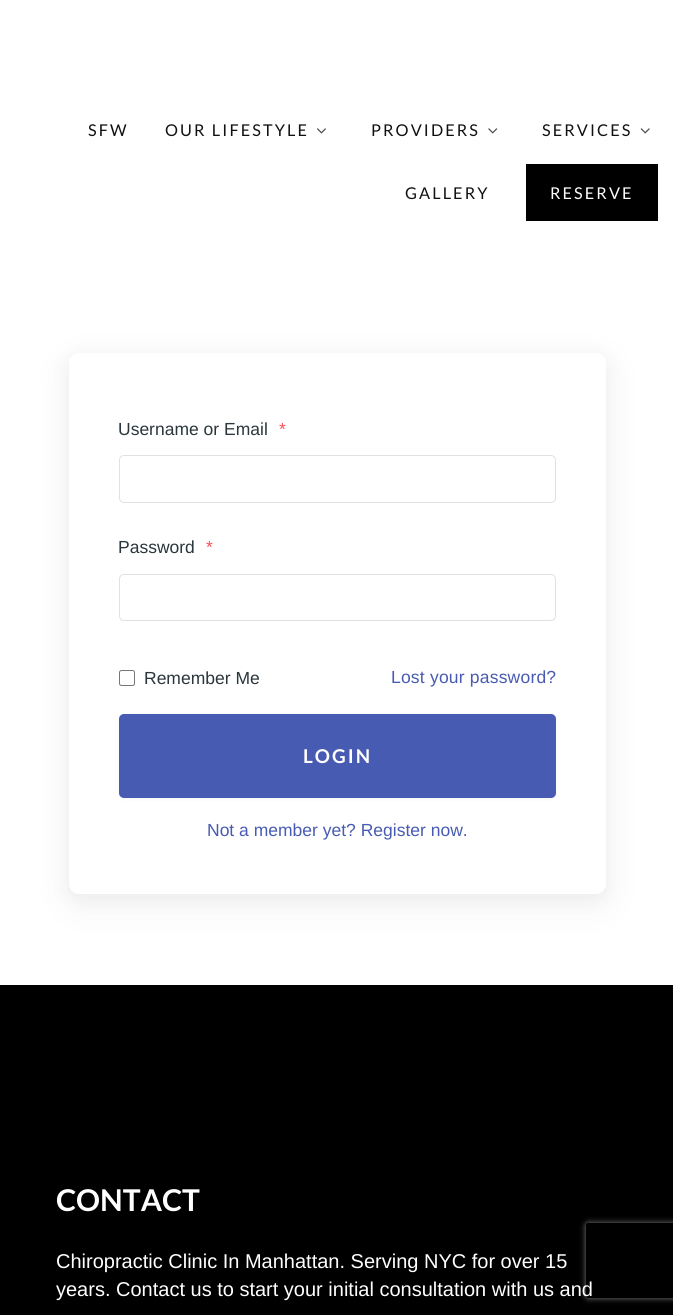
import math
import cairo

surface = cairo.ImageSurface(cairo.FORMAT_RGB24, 673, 1315)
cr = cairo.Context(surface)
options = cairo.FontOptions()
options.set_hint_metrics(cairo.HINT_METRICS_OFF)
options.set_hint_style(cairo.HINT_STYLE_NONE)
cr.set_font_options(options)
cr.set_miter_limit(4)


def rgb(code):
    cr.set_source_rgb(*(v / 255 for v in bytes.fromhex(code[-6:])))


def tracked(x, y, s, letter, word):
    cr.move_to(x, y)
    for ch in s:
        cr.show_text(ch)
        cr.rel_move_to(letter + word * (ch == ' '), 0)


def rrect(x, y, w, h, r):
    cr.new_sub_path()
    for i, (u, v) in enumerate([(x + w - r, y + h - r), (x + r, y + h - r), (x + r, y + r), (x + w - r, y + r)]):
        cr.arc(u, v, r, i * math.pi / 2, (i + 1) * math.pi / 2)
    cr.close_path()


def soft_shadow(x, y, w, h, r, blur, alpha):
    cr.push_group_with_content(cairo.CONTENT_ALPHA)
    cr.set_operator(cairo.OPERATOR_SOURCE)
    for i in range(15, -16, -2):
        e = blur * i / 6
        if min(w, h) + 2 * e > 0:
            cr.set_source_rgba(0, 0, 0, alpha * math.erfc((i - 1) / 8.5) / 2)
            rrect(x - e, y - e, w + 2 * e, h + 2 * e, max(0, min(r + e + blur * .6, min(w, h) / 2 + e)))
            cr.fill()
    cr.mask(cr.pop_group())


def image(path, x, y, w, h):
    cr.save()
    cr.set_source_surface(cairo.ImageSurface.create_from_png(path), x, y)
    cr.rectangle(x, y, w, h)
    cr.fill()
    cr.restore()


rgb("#ffffff")
cr.paint()
image("img/1.png", 317, 128, 9, 6)
image("img/2.png", 488, 128, 10, 6)
image("img/3.png", 640, 128, 10, 6)
rgb("#000000")
cr.rectangle(526, 164, 132, 57)
cr.fill()
rgb("#11111a")
soft_shadow(69, 363, 537, 541, 10, 20, 0.05)
soft_shadow(69, 358, 537, 541, 10, 10, 0.05)
rgb("#ffffff")
rrect(69, 353, 537, 541, 10)
cr.fill()
rrect(119.5, 455.5, 436, 47, 4.5)
rgb("#e1e1e1")
cr.set_line_width(1)
cr.stroke()
rrect(119.5, 574.5, 436, 46, 4.5)
cr.stroke()
rrect(119.5, 670.5, 15, 15, 2)
rgb("#767676")
cr.stroke()
rgb("#b6bbcf")
soft_shadow(119, 715, 437, 84, 5, 2, 0.15)
rgb("#475bb2")
rrect(119, 714, 437, 84, 5)
cr.fill()
rgb("#000000")
cr.rectangle(0, 985, 673, 330)
cr.fill()
cr.save()
cr.set_fill_rule(cairo.FILL_RULE_EVEN_ODD)
cr.new_path()
cr.move_to(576, 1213)
cr.line_to(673, 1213)
cr.line_to(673, 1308)
cr.line_to(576, 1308)
cr.close_path()
cr.move_to(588.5, 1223)
cr.line_to(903.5, 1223)
cr.curve_to(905, 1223, 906, 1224, 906, 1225.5)
cr.line_to(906, 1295.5)
cr.curve_to(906, 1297, 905, 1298, 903.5, 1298)
cr.line_to(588.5, 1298)
cr.curve_to(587, 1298, 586, 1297, 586, 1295.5)
cr.line_to(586, 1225.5)
cr.curve_to(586, 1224, 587, 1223, 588.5, 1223)
cr.close_path()
cr.clip()
rgb("#808080")
soft_shadow(586, 1223, 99, 75, 2.5, 3, 1)
cr.restore()
cr.select_font_face("Lato")
cr.set_font_size(16.25)
rgb("#111111")
for x, y, s in [
    (88, 136, "SFW"),
    (165, 136, "OUR LIFESTYLE"),
    (371, 136, "PROVIDERS"),
    (542, 136, "SERVICES"),
    (405, 199, "GALLERY"),
]:
    tracked(x, y, s, 2.1, 0)
rgb("#ffffff")
tracked(550, 199, "RESERVE", 2.1, 0)
cr.select_font_face("Liberation Sans")
cr.set_font_size(17.5)
rgb("#2a363b")
cr.move_to(118, 435)
cr.show_text("Username or Email")
rgb("#ff4f55")
cr.move_to(279, 435)
cr.show_text("*")
rgb("#2a363b")
cr.move_to(118, 553)
cr.show_text("Password")
rgb("#ff4f55")
cr.move_to(206, 553)
cr.show_text("*")
rgb("#2a363b")
cr.move_to(144, 684)
cr.show_text("Remember Me")
rgb("#475bb2")
tracked(391, 683, "Lost your password?", 0.2, 0)
cr.select_font_face("Lato", cairo.FONT_SLANT_NORMAL, cairo.FONT_WEIGHT_BOLD)
cr.set_font_size(19)
rgb("#ffffff")
tracked(303, 763, "LOGIN", 2, 0)
cr.select_font_face("Liberation Sans")
cr.set_font_size(17.5)
rgb("#475bb2")
cr.move_to(207, 836)
cr.show_text("Not a member yet? Register now.")
cr.select_font_face("Lato", cairo.FONT_SLANT_NORMAL, cairo.FONT_WEIGHT_BOLD)
cr.set_font_size(30)
rgb("#ffffff")
cr.move_to(56, 1211)
cr.show_text("CONTACT")
cr.select_font_face("Liberation Sans")
cr.set_font_size(20)
cr.move_to(56, 1268)
cr.show_text("Chiropractic Clinic In Manhattan. Serving NYC for over 15")
cr.move_to(56, 1296)
cr.show_text("years. Contact us to start your initial consultation with us and")
surface.write_to_png("page.png")
